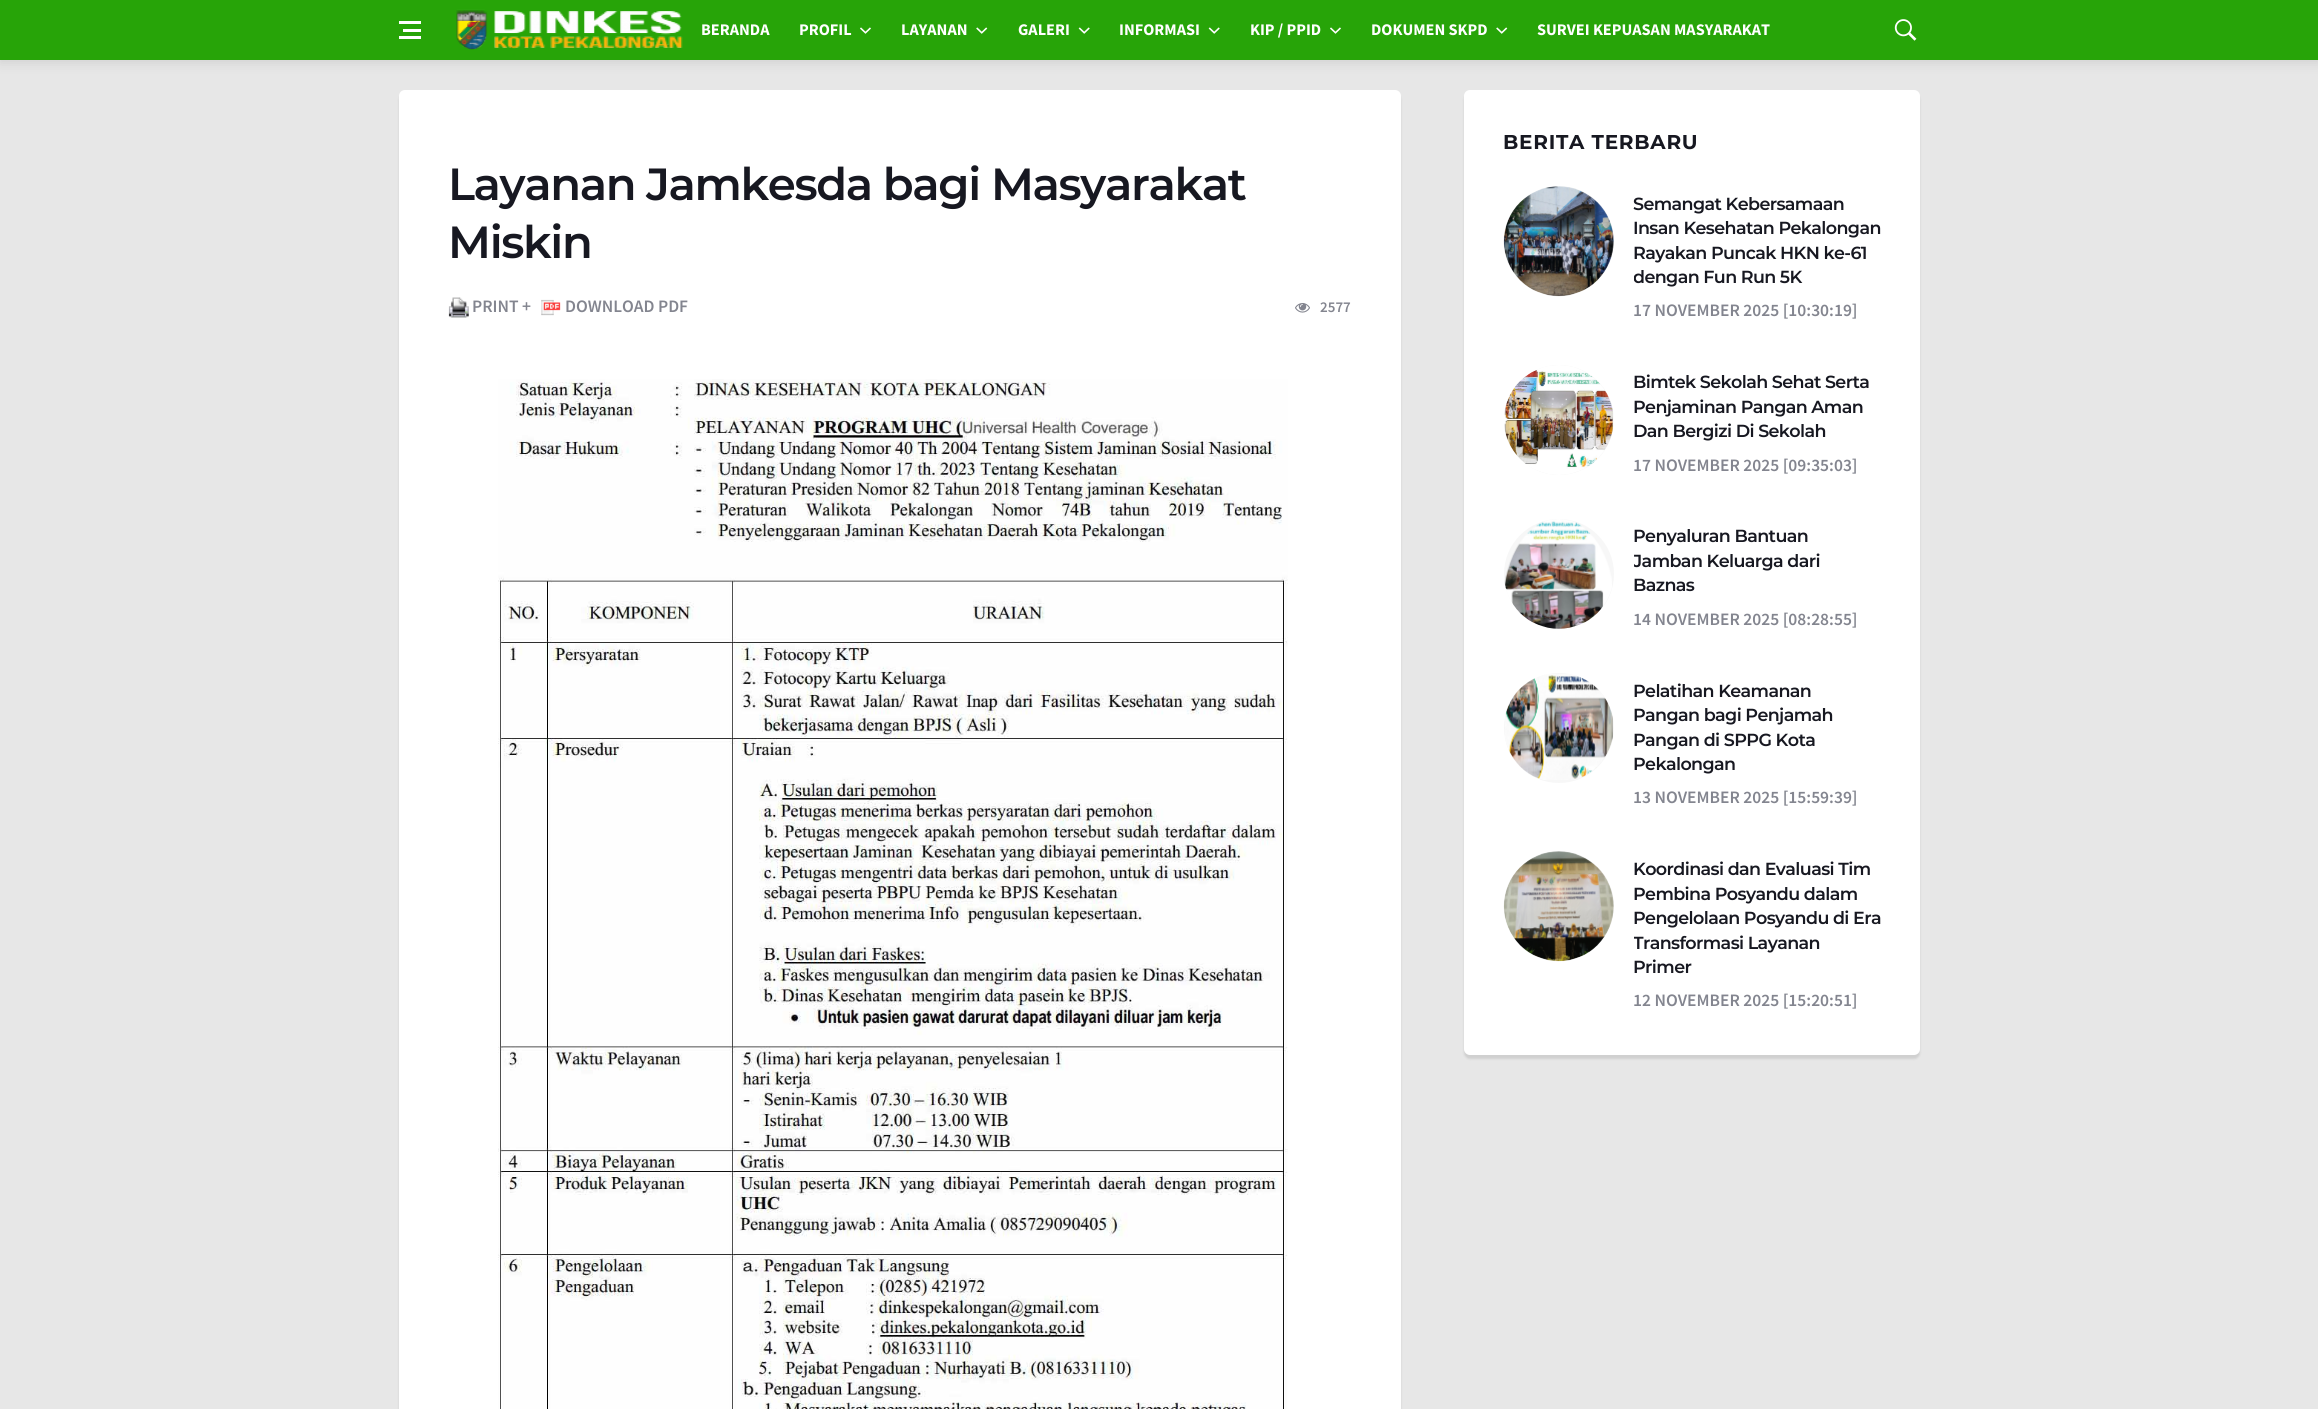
import math
import cairo

surface = cairo.ImageSurface(cairo.FORMAT_RGB24, 2318, 1409)
cr = cairo.Context(surface)
options = cairo.FontOptions()
options.set_hint_metrics(cairo.HINT_METRICS_OFF)
options.set_hint_style(cairo.HINT_STYLE_NONE)
cr.set_font_options(options)
cr.set_miter_limit(4)


def rgb(code):
    cr.set_source_rgb(*(v / 255 for v in bytes.fromhex(code[-6:])))


def tracked(x, y, s, letter, word):
    cr.move_to(x, y)
    for ch in s:
        cr.show_text(ch)
        cr.rel_move_to(letter + word * (ch == ' '), 0)


def rrect(x, y, w, h, r):
    cr.new_sub_path()
    for i, (u, v) in enumerate([(x + w - r, y + h - r), (x + r, y + h - r), (x + r, y + r), (x + w - r, y + r)]):
        cr.arc(u, v, r, i * math.pi / 2, (i + 1) * math.pi / 2)
    cr.close_path()


def soft_shadow(x, y, w, h, r, blur, alpha):
    cr.push_group_with_content(cairo.CONTENT_ALPHA)
    cr.set_operator(cairo.OPERATOR_SOURCE)
    for i in range(15, -16, -2):
        e = blur * i / 6
        if min(w, h) + 2 * e > 0:
            cr.set_source_rgba(0, 0, 0, alpha * math.erfc((i - 1) / 8.5) / 2)
            rrect(x - e, y - e, w + 2 * e, h + 2 * e, max(0, min(r + e + blur * .6, min(w, h) / 2 + e)))
            cr.fill()
    cr.mask(cr.pop_group())


def image(path, x, y, w, h):
    cr.save()
    cr.set_source_surface(cairo.ImageSurface.create_from_png(path), x, y)
    cr.rectangle(x, y, w, h)
    cr.fill()
    cr.restore()


rgb("#e7e7e7")
cr.paint()
rgb("#000000")
soft_shadow(0, 3, 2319, 60, 0, 6, 0.1)
for x, y, w, h, color in [
    (0, 0, 2318, 60, "#27a408"),
    (403, 29, 18, 3, "#ffffff"),
    (399, 21, 22, 3, "#ffffff"),
    (399, 36, 22, 3, "#ffffff"),
]:
    rgb(color)
    cr.rectangle(x, y, w, h)
    cr.fill()
image("img/1.png", 456, 9, 227, 41)
image("img/2.png", 860, 27, 11, 7)
image("img/3.png", 976, 27, 12, 7)
image("img/4.png", 1078, 27, 12, 7)
image("img/4.png", 1208, 27, 12, 7)
image("img/2.png", 1330, 27, 11, 7)
image("img/3.png", 1496, 27, 12, 7)
image("img/5.png", 1894, 19, 23, 22)
rgb("#000000")
soft_shadow(399, 94, 1002, 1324, 6, 1, 0.1)
rgb("#ffffff")
rrect(399, 90, 1002, 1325, 6)
cr.fill()
image("img/6.png", 448, 297, 21, 21)
image("img/7.png", 541, 299, 20, 17)
image("img/8.png", 1295, 303, 15, 10)
image("img/9.png", 498, 379, 790, 1030)
rgb("#000000")
soft_shadow(1464, 94, 456, 965, 6, 1, 0.1)
rgb("#ffffff")
rrect(1464, 90, 456, 965, 6)
cr.fill()
rgb("#f7f7f7")
cr.arc(1559, 241, 55, 0, 2 * math.pi)
cr.fill()
image("img/10.png", 1503, 186, 111, 111)
cr.arc(1559, 420, 55, 0, 2 * math.pi)
cr.fill()
image("img/11.png", 1504, 365, 110, 110)
cr.arc(1559, 574, 55, 0, 2 * math.pi)
cr.fill()
image("img/12.png", 1504, 519, 108, 110)
cr.arc(1559, 728, 55, 0, 2 * math.pi)
cr.fill()
image("img/13.png", 1505, 674, 108, 106)
cr.arc(1559, 906, 55, 0, 2 * math.pi)
cr.fill()
image("img/14.png", 1503, 851, 111, 111)
cr.select_font_face("Source Sans Pro", cairo.FONT_SLANT_NORMAL, cairo.FONT_WEIGHT_BOLD)
cr.set_font_size(16.25)
rgb("#ffffff")
for x, y, s in [
    (701, 35, "BERANDA"),
    (799, 35, "PROFIL"),
    (901, 35, "LAYANAN"),
    (1018, 35, "GALERI"),
    (1119, 35, "INFORMASI"),
    (1250, 35, "KIP / PPID"),
    (1371, 35, "DOKUMEN SKPD"),
    (1537, 35, "SURVEI KEPUASAN MASYARAKAT"),
]:
    cr.move_to(x, y)
    cr.show_text(s)
cr.select_font_face("Montserrat SemiBold")
cr.set_font_size(45)
rgb("#171821")
tracked(448, 200, "Layanan Jamkesda bagi Masyarakat", -1.35, 0)
tracked(448, 258, "Miskin", -1.35, 0)
cr.select_font_face("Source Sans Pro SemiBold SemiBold")
cr.set_font_size(17.5)
rgb("#83858f")
cr.move_to(472, 312)
cr.show_text("PRINT +")
cr.move_to(565, 312)
cr.show_text("DOWNLOAD PDF")
cr.set_font_size(15)
cr.move_to(1320, 312)
cr.show_text("2577")
cr.select_font_face("Montserrat", cairo.FONT_SLANT_NORMAL, cairo.FONT_WEIGHT_BOLD)
cr.set_font_size(20)
rgb("#171821")
tracked(1503, 149, "BERITA TERBARU", 0.75, 0)
cr.select_font_face("Montserrat SemiBold")
cr.set_font_size(17.5)
for x, y, s in [
    (1633, 210, "Semangat Kebersamaan"),
    (1633, 234, "Insan Kesehatan Pekalongan"),
    (1633, 259, "Rayakan Puncak HKN ke-61"),
]:
    tracked(x, y, s, -0.6, 0)
cr.save()
cr.rectangle(1634, 186, 246, 139)
cr.clip()
tracked(1633, 283, "dengan Fun Run 5K", -0.6, 0)
cr.restore()
cr.select_font_face("Source Sans Pro SemiBold SemiBold")
rgb("#83858f")
cr.move_to(1633, 316)
cr.show_text("17 NOVEMBER 2025 [10:30:19]")
cr.select_font_face("Montserrat SemiBold")
rgb("#171821")
for x, y, s in [
    (1633, 388, "Bimtek Sekolah Sehat Serta"),
    (1633, 413, "Penjaminan Pangan Aman"),
    (1633, 437, "Dan Bergizi Di Sekolah"),
]:
    tracked(x, y, s, -0.6, 0)
cr.select_font_face("Source Sans Pro SemiBold SemiBold")
rgb("#83858f")
cr.move_to(1633, 471)
cr.show_text("17 NOVEMBER 2025 [09:35:03]")
cr.select_font_face("Montserrat SemiBold")
rgb("#171821")
tracked(1633, 542, "Penyaluran Bantuan", -0.6, 0)
cr.save()
cr.rectangle(1634, 519, 246, 114)
cr.clip()
tracked(1633, 567, "Jamban Keluarga dari", -0.6, 0)
cr.restore()
tracked(1633, 591, "Baznas", -0.6, 0)
cr.select_font_face("Source Sans Pro SemiBold SemiBold")
rgb("#83858f")
cr.move_to(1633, 625)
cr.show_text("14 NOVEMBER 2025 [08:28:55]")
cr.select_font_face("Montserrat SemiBold")
rgb("#171821")
for x, y, s in [
    (1633, 697, "Pelatihan Keamanan"),
    (1633, 721, "Pangan bagi Penjamah"),
    (1633, 746, "Pangan di SPPG Kota"),
    (1633, 770, "Pekalongan"),
]:
    tracked(x, y, s, -0.6, 0)
cr.select_font_face("Source Sans Pro SemiBold SemiBold")
rgb("#83858f")
cr.move_to(1633, 803)
cr.show_text("13 NOVEMBER 2025 [15:59:39]")
cr.select_font_face("Montserrat SemiBold")
rgb("#171821")
for x, y, s in [
    (1633, 875, "Koordinasi dan Evaluasi Tim"),
    (1633, 900, "Pembina Posyandu dalam"),
    (1633, 924, "Pengelolaan Posyandu di Era"),
]:
    tracked(x, y, s, -0.6, 0)
cr.save()
cr.rectangle(1634, 851, 246, 164)
cr.clip()
tracked(1633, 949, "Transformasi Layanan", -0.6, 0)
cr.restore()
tracked(1633, 973, "Primer", -0.6, 0)
cr.select_font_face("Source Sans Pro SemiBold SemiBold")
rgb("#83858f")
cr.move_to(1633, 1006)
cr.show_text("12 NOVEMBER 2025 [15:20:51]")
surface.write_to_png("page.png")
